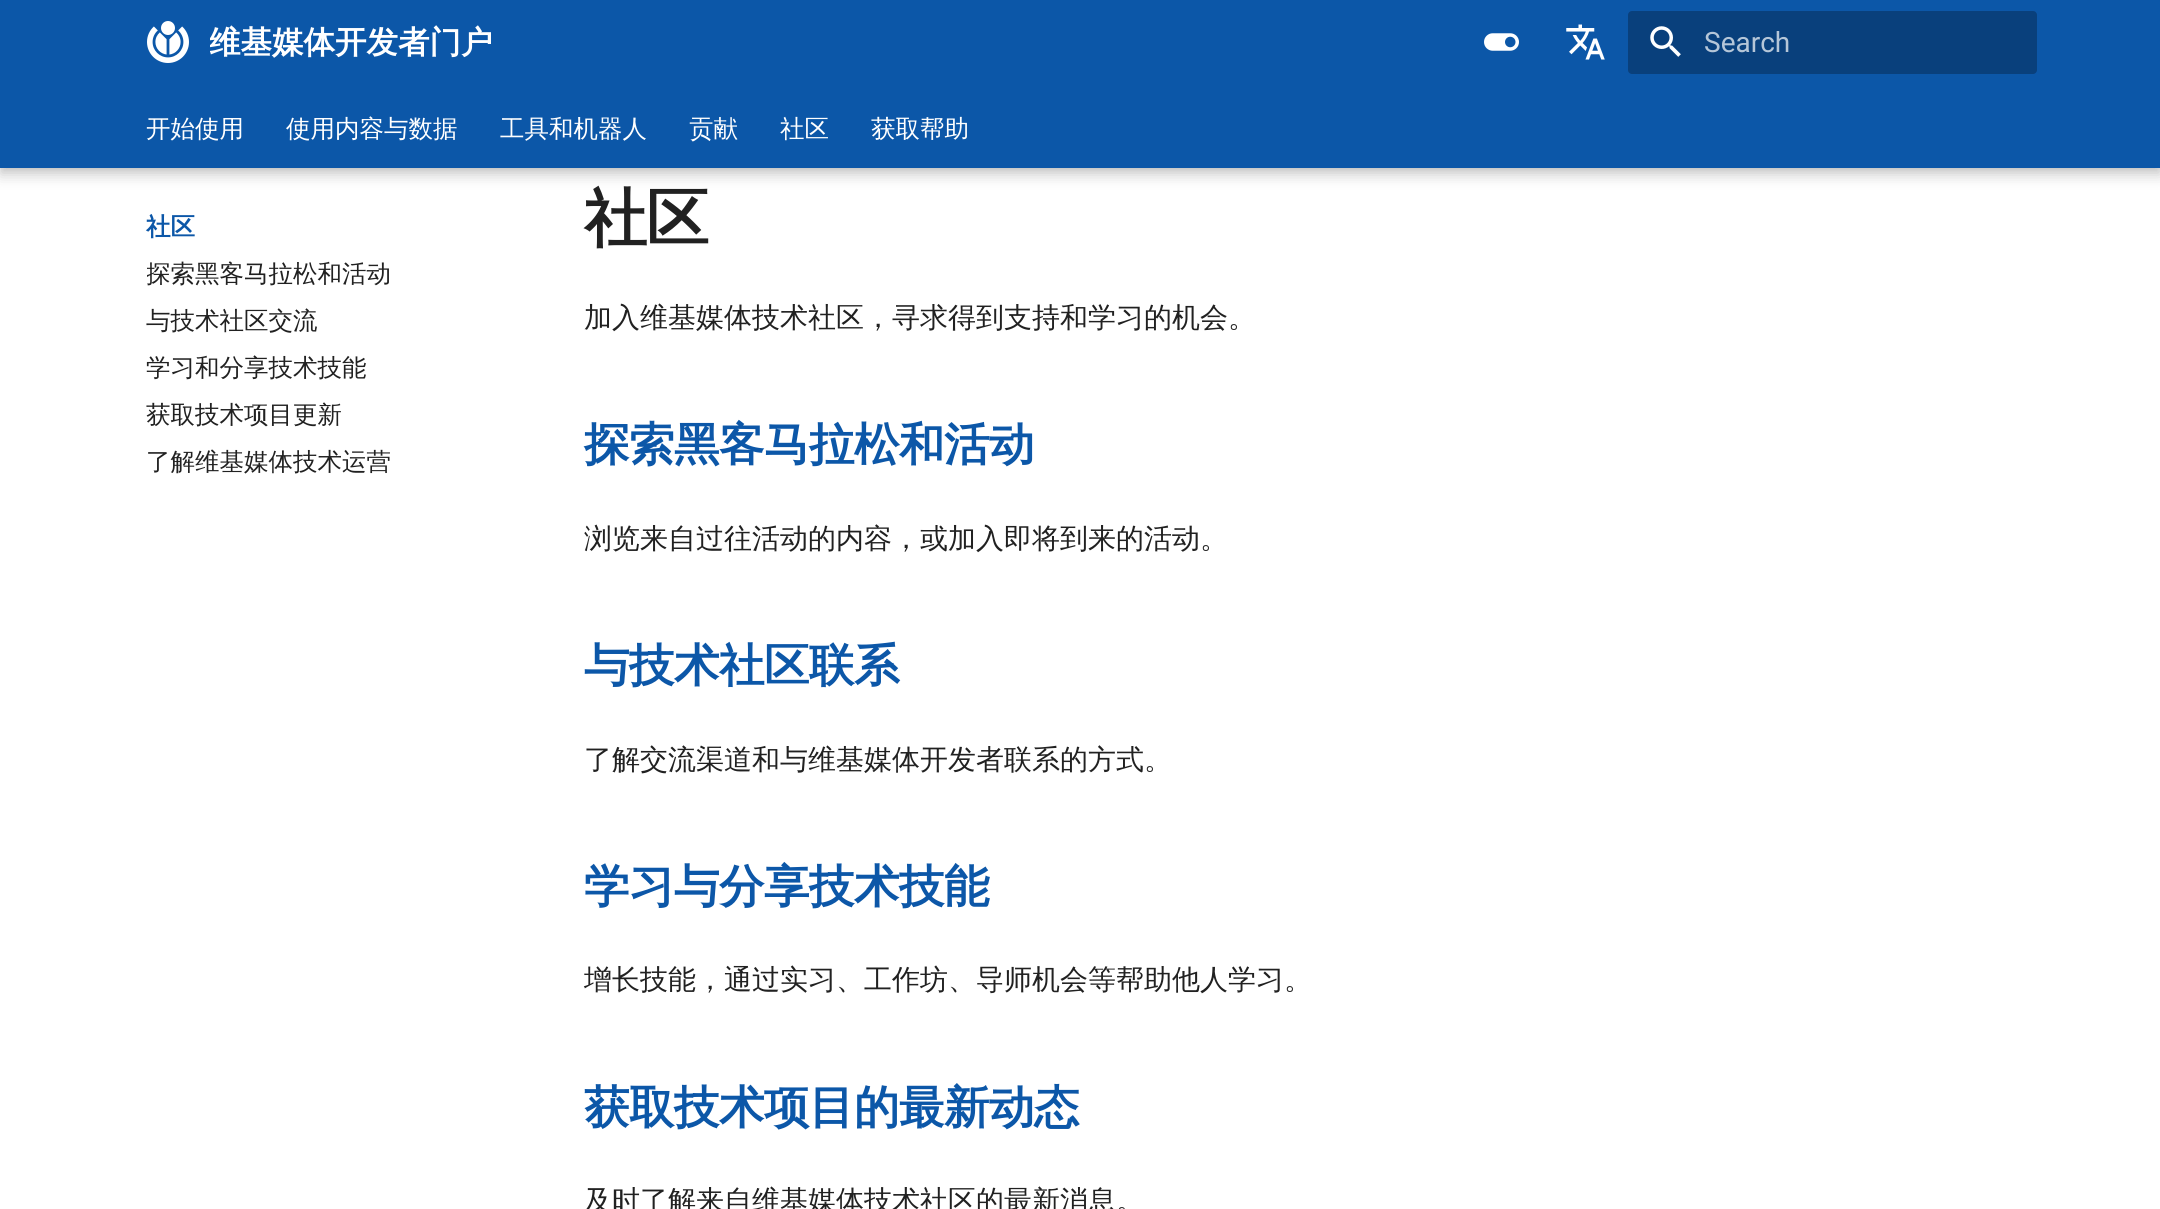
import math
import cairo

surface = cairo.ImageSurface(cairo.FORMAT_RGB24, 2160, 1209)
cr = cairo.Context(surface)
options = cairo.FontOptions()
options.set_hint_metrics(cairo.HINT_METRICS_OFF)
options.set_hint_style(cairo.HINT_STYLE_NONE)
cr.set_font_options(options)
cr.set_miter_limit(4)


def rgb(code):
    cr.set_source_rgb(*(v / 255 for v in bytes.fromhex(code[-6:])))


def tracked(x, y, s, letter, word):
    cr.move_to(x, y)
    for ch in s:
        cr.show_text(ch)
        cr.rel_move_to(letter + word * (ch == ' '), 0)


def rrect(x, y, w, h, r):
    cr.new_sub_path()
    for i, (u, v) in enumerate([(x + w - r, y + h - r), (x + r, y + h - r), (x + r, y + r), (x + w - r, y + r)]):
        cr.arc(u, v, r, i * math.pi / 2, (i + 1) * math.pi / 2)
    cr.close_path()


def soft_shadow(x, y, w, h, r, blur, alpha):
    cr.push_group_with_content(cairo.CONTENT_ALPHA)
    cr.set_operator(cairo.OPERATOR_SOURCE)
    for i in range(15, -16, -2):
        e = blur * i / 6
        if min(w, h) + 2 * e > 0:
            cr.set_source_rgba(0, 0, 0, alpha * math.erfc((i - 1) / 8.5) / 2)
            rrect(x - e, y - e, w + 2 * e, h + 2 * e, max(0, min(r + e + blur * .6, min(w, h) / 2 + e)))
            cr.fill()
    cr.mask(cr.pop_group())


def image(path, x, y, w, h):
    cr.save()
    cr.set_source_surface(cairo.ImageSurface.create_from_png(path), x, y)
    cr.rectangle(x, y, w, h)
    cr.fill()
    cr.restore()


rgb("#ffffff")
cr.paint()
rgb("#000000")
soft_shadow(0, 7, 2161, 168, 0, 7, 0.2)
soft_shadow(0, 0, 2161, 168, 0, 3.5, 0.1)
rgb("#0c57a8")
cr.rectangle(0, 0, 2160, 168)
cr.fill()
image("img/1.png", 147, 21, 42, 42)
image("img/2.png", 1484, 33, 35, 18)
image("img/3.png", 1566, 24, 39, 36)
rgb("#09407c")
rrect(1628, 11, 409, 63, 4)
cr.fill()
image("img/4.png", 1650, 26, 31, 31)
cr.save()
cr.rectangle(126, 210, 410, 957)
cr.clip()
cr.set_fill_rule(cairo.FILL_RULE_EVEN_ODD)
cr.new_path()
cr.move_to(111, 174)
cr.line_to(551, 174)
cr.line_to(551, 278)
cr.line_to(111, 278)
cr.close_path()
cr.move_to(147, 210)
cr.line_to(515, 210)
cr.line_to(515, 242)
cr.line_to(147, 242)
cr.close_path()
cr.clip()
rgb("#ffffff")
soft_shadow(133, 196, 396, 60, 0, 7, 1)
cr.restore()
cr.save()
cr.rectangle(210, 0, 284, 84)
cr.clip()
cr.select_font_face("WenQuanYi Zen Hei", cairo.FONT_SLANT_NORMAL, cairo.FONT_WEIGHT_BOLD)
cr.set_font_size(31.5)
rgb("#ffffff")
cr.move_to(209, 53)
cr.show_text("维基媒体开发者门户")
cr.restore()
cr.select_font_face("Roboto")
cr.set_font_size(28)
rgb("#b5c6d8")
cr.move_to(1704, 52)
cr.show_text("Search")
cr.select_font_face("WenQuanYi Zen Hei Medium")
cr.set_font_size(24.5)
rgb("#ffffff")
for x, y, s in [
    (146, 137, "开始使用"),
    (286, 137, "使用内容与数据"),
    (500, 137, "工具和机器人"),
    (689, 137, "贡献"),
    (780, 137, "社区"),
    (871, 137, "获取帮助"),
]:
    cr.move_to(x, y)
    cr.show_text(s)
cr.select_font_face("WenQuanYi Zen Hei", cairo.FONT_SLANT_NORMAL, cairo.FONT_WEIGHT_BOLD)
rgb("#0c57a8")
cr.move_to(146, 235)
cr.show_text("社区")
cr.save()
cr.rectangle(147, 257, 245, 32)
cr.clip()
cr.select_font_face("WenQuanYi Zen Hei Medium")
rgb("#212121")
cr.move_to(146, 282)
cr.show_text("探索黑客马拉松和活动")
cr.restore()
cr.select_font_face("WenQuanYi Zen Hei Medium")
rgb("#212121")
for x, y, s in [
    (146, 329, "与技术社区交流"),
    (146, 376, "学习和分享技术技能"),
    (146, 423, "获取技术项目更新"),
    (146, 470, "了解维基媒体技术运营"),
]:
    cr.move_to(x, y)
    cr.show_text(s)
cr.select_font_face("WenQuanYi Zen Hei", cairo.FONT_SLANT_NORMAL, cairo.FONT_WEIGHT_BOLD)
cr.set_font_size(63)
tracked(584, 240, "社区", -1, 0)
cr.select_font_face("WenQuanYi Zen Hei Medium")
cr.set_font_size(28)
cr.move_to(584, 327)
cr.show_text("加入维基媒体技术社区，寻求得到支持和学习的机会。")
cr.select_font_face("WenQuanYi Zen Hei", cairo.FONT_SLANT_NORMAL, cairo.FONT_WEIGHT_BOLD)
cr.set_font_size(45.5)
rgb("#0c57a8")
tracked(584, 460, "探索黑客马拉松和活动", -0.5, 0)
cr.select_font_face("WenQuanYi Zen Hei Medium")
cr.set_font_size(28)
rgb("#212121")
cr.move_to(584, 548)
cr.show_text("浏览来自过往活动的内容，或加入即将到来的活动。")
cr.select_font_face("WenQuanYi Zen Hei", cairo.FONT_SLANT_NORMAL, cairo.FONT_WEIGHT_BOLD)
cr.set_font_size(45.5)
rgb("#0c57a8")
tracked(584, 681, "与技术社区联系", -0.5, 0)
cr.select_font_face("WenQuanYi Zen Hei Medium")
cr.set_font_size(28)
rgb("#212121")
cr.move_to(584, 769)
cr.show_text("了解交流渠道和与维基媒体开发者联系的方式。")
cr.select_font_face("WenQuanYi Zen Hei", cairo.FONT_SLANT_NORMAL, cairo.FONT_WEIGHT_BOLD)
cr.set_font_size(45.5)
rgb("#0c57a8")
tracked(584, 902, "学习与分享技术技能", -0.5, 0)
cr.select_font_face("WenQuanYi Zen Hei Medium")
cr.set_font_size(28)
rgb("#212121")
cr.move_to(584, 989)
cr.show_text("增长技能，通过实习、工作坊、导师机会等帮助他人学习。")
cr.select_font_face("WenQuanYi Zen Hei", cairo.FONT_SLANT_NORMAL, cairo.FONT_WEIGHT_BOLD)
cr.set_font_size(45.5)
rgb("#0c57a8")
tracked(584, 1123, "获取技术项目的最新动态", -0.5, 0)
cr.select_font_face("WenQuanYi Zen Hei Medium")
cr.set_font_size(28)
rgb("#212121")
cr.move_to(584, 1210)
cr.show_text("及时了解来自维基媒体技术社区的最新消息。")
surface.write_to_png("page.png")
